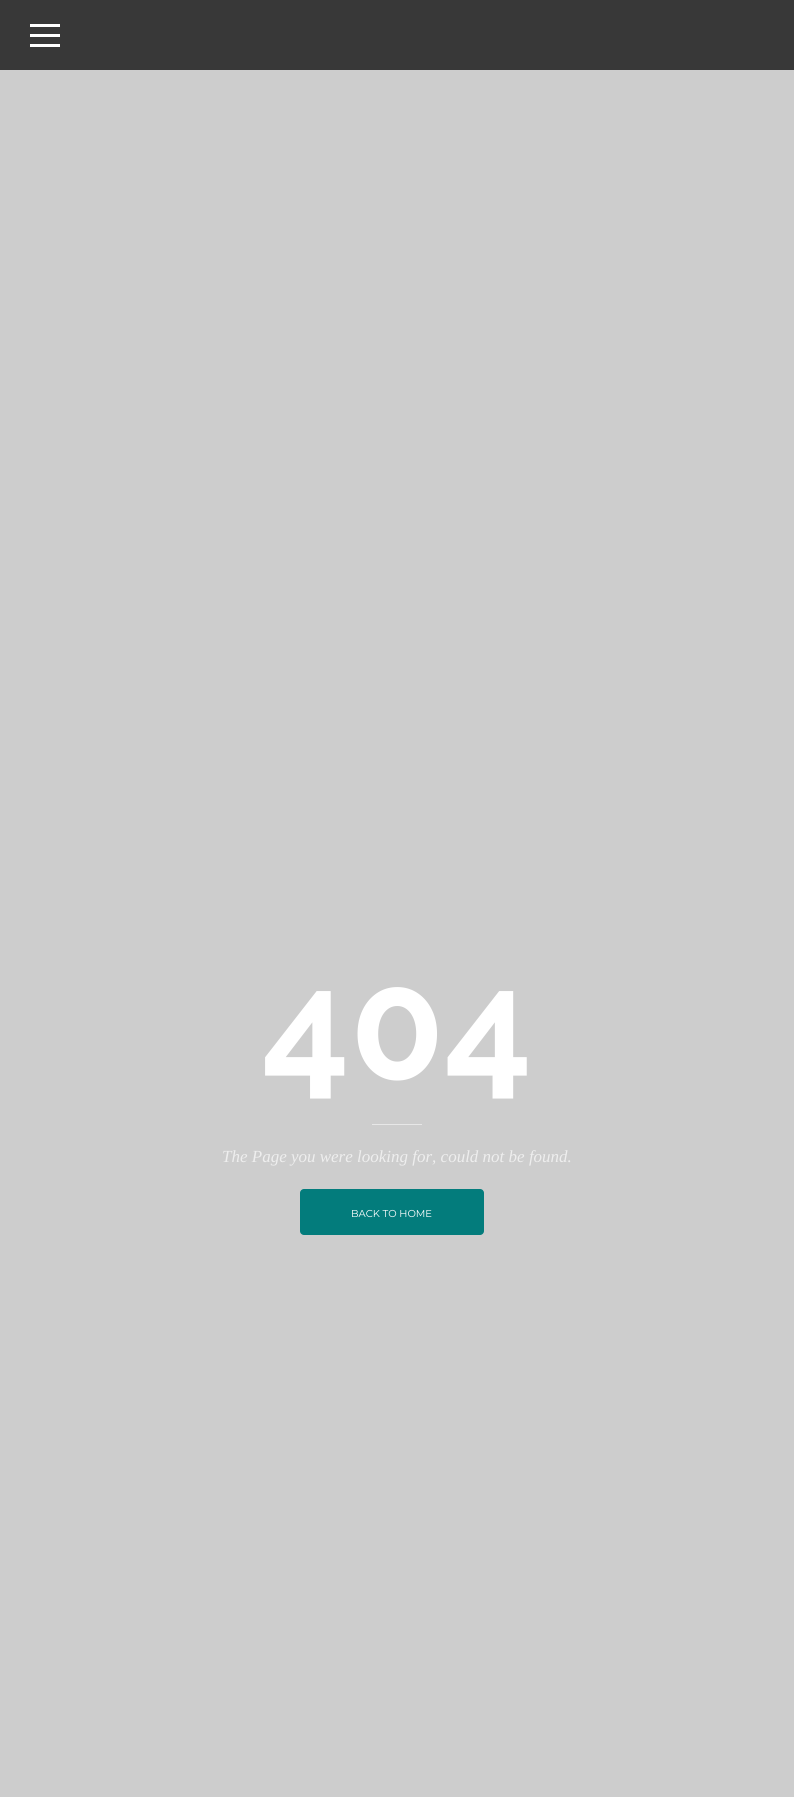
import math
import cairo

surface = cairo.ImageSurface(cairo.FORMAT_RGB24, 794, 1797)
cr = cairo.Context(surface)
options = cairo.FontOptions()
options.set_hint_metrics(cairo.HINT_METRICS_OFF)
options.set_hint_style(cairo.HINT_STYLE_NONE)
cr.set_font_options(options)
cr.set_miter_limit(4)


def rgb(code):
    cr.set_source_rgb(*(v / 255 for v in bytes.fromhex(code[-6:])))


def rrect(x, y, w, h, r):
    cr.new_sub_path()
    for i, (u, v) in enumerate([(x + w - r, y + h - r), (x + r, y + h - r), (x + r, y + r), (x + w - r, y + r)]):
        cr.arc(u, v, r, i * math.pi / 2, (i + 1) * math.pi / 2)
    cr.close_path()


rgb("#cdcdcd")
cr.paint()
for x, y, w, h, color in [
    (0, 0, 794, 70, "#383838"),
    (30, 24, 30, 3, "#ffffff"),
    (30, 34, 30, 3, "#ffffff"),
    (30, 44, 30, 3, "#ffffff"),
    (372, 1124, 50, 1, "#e7e7e7"),
]:
    rgb(color)
    cr.rectangle(x, y, w, h)
    cr.fill()
rgb("#037c7c")
rrect(300, 1189, 184, 46, 4)
cr.fill()
cr.select_font_face("Raleway", cairo.FONT_SLANT_NORMAL, cairo.FONT_WEIGHT_BOLD)
cr.set_font_size(154)
rgb("#ffffff")
cr.move_to(262, 1079)
cr.show_text("404")
cr.select_font_face("Liberation Serif", cairo.FONT_SLANT_ITALIC)
cr.set_font_size(17)
rgb("#eeeeee")
cr.move_to(222, 1162)
cr.show_text("The Page you were looking for, could not be found.")
cr.select_font_face("Montserrat")
cr.set_font_size(10)
rgb("#ffffff")
cr.move_to(351, 1217)
cr.show_text("BACK TO HOME")
surface.write_to_png("page.png")
